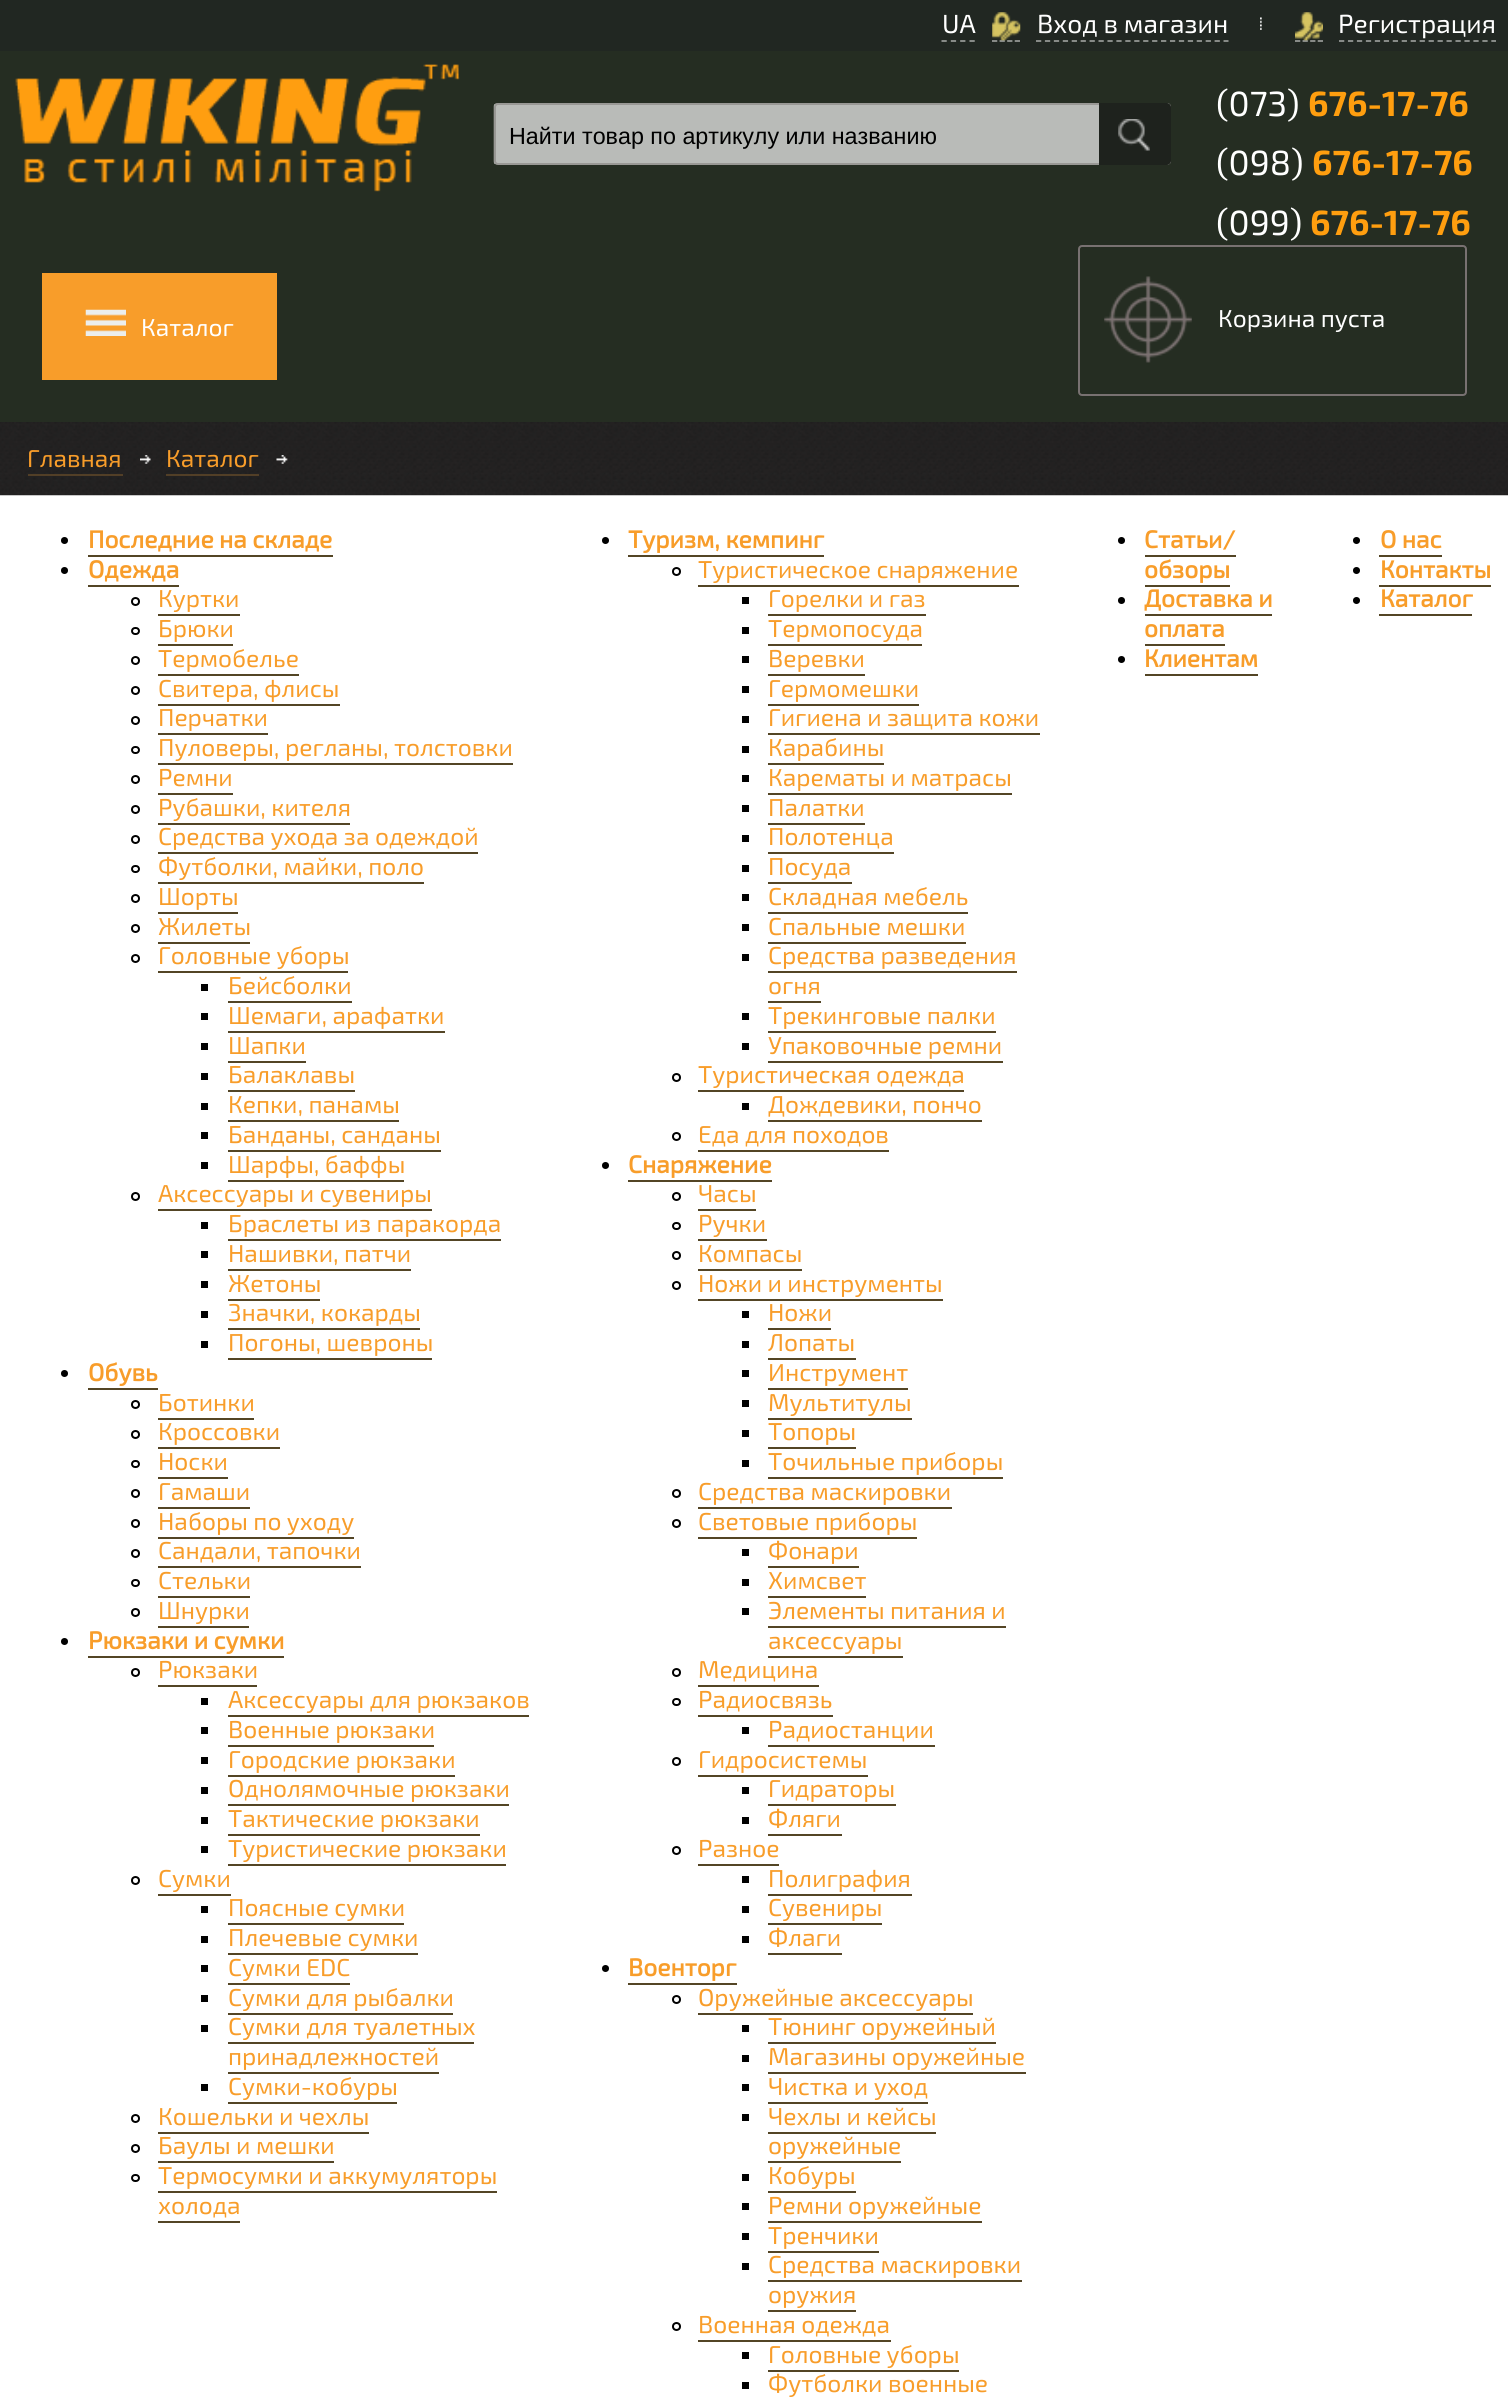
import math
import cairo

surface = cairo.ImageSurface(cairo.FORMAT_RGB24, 1508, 2399)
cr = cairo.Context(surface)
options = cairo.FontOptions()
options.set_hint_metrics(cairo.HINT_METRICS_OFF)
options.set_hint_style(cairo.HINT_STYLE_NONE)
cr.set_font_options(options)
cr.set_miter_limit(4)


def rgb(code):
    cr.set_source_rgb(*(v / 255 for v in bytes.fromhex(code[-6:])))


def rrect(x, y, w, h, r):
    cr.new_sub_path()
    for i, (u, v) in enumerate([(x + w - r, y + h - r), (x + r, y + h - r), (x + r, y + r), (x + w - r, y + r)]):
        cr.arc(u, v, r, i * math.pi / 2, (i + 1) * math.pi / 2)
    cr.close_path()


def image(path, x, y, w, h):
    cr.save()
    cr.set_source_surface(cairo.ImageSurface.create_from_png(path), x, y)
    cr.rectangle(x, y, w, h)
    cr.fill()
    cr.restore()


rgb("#ffffff")
cr.paint()
rgb("#252d22")
cr.rectangle(0, 51, 1508, 371)
cr.fill()
rgb("#212722")
cr.rectangle(0, 0, 1508, 51)
cr.fill()
cr.new_path()
cr.move_to(941.5, 41)
cr.line_to(975, 41)
rgb("#929592")
cr.set_line_width(1.8)
cr.set_dash([5.25, 4.08])
cr.stroke()
cr.new_path()
cr.move_to(992, 41)
cr.line_to(1020, 41)
cr.set_dash([5.25, 2.33])
cr.stroke()
cr.new_path()
cr.move_to(1036, 41)
cr.line_to(1228.5, 41)
cr.set_dash([5.25, 3.68])
cr.stroke()
image("img/1.png", 992, 12, 29, 29)
image("img/2.png", 1260, 17, 2, 13)
cr.new_path()
cr.move_to(1295, 41)
cr.line_to(1323, 41)
cr.set_dash([5.25, 2.33])
cr.stroke()
cr.new_path()
cr.move_to(1339, 41)
cr.line_to(1496, 41)
cr.set_dash([5.25, 3.71])
cr.stroke()
image("img/3.png", 1295, 12, 28, 29)
rgb("#f89d2a")
cr.rectangle(42, 273, 235, 107)
cr.fill()
image("img/4.png", 85, 309, 41, 27)
image("img/5.png", 15, 64, 445, 128)
image("img/6.png", 493, 103, 678, 62)
rrect(495, 104, 675, 60, 3)
rgb("#999895")
cr.set_line_width(2)
cr.set_dash([])
cr.stroke()
rgb("#1e221d")
cr.new_path()
cr.move_to(1099, 103)
cr.line_to(1167, 103)
cr.curve_to(1169, 103, 1171, 105, 1171, 107)
cr.line_to(1171, 161)
cr.curve_to(1171, 163, 1169, 165, 1167, 165)
cr.line_to(1099, 165)
cr.close_path()
cr.fill()
image("img/7.png", 1118, 119, 32, 32)
rrect(1079, 246, 387, 149, 3)
rgb("#787171")
cr.stroke()
image("img/8.png", 1104, 276, 88, 87)
image("img/9.png", 0, 422, 1508, 74)
rgb("#523f27")
cr.rectangle(28, 474, 95, 2)
cr.fill()
image("img/10.png", 140, 455, 11, 9)
cr.rectangle(166, 474, 93, 2)
cr.fill()
image("img/11.png", 276, 455, 12, 9)
rgb("#000000")
cr.arc(64.5, 540.5, 3.5, 0, 2 * math.pi)
cr.fill()
rgb("#534525")
cr.rectangle(88, 555, 245, 2)
cr.fill()
rgb("#000000")
cr.arc(64.5, 570.5, 3.5, 0, 2 * math.pi)
cr.fill()
rgb("#534525")
cr.rectangle(88, 585, 91, 2)
cr.fill()
cr.arc(135.5, 601.5, 3.5, 0, 2 * math.pi)
rgb("#000000")
cr.stroke()
rgb("#534525")
cr.rectangle(158, 614, 82, 2)
cr.fill()
rrect(132, 628, 7, 6, 3)
rgb("#000000")
cr.stroke()
rgb("#534525")
cr.rectangle(158, 644, 75, 2)
cr.fill()
cr.arc(135.5, 660.5, 3.5, 0, 2 * math.pi)
rgb("#000000")
cr.stroke()
rgb("#534525")
cr.rectangle(158, 674, 141, 2)
cr.fill()
cr.arc(135.5, 690.5, 3.5, 0, 2 * math.pi)
rgb("#000000")
cr.stroke()
rgb("#534525")
cr.rectangle(158, 704, 182, 2)
cr.fill()
cr.arc(135.5, 720.5, 3.5, 0, 2 * math.pi)
rgb("#000000")
cr.stroke()
rgb("#534525")
cr.rectangle(158, 733, 110, 2)
cr.fill()
rrect(132, 747, 7, 6, 3)
rgb("#000000")
cr.stroke()
rgb("#534525")
cr.rectangle(158, 763, 355, 2)
cr.fill()
cr.arc(135.5, 779.5, 3.5, 0, 2 * math.pi)
rgb("#000000")
cr.stroke()
rgb("#534525")
cr.rectangle(158, 793, 75, 2)
cr.fill()
cr.arc(135.5, 809.5, 3.5, 0, 2 * math.pi)
rgb("#000000")
cr.stroke()
rgb("#534525")
cr.rectangle(158, 823, 192, 2)
cr.fill()
cr.arc(135.5, 839.5, 3.5, 0, 2 * math.pi)
rgb("#000000")
cr.stroke()
rgb("#534525")
cr.rectangle(158, 852, 320, 2)
cr.fill()
rrect(132, 866, 7, 6, 3)
rgb("#000000")
cr.stroke()
rgb("#534525")
cr.rectangle(158, 882, 266, 2)
cr.fill()
cr.arc(135.5, 898.5, 3.5, 0, 2 * math.pi)
rgb("#000000")
cr.stroke()
rgb("#534525")
cr.rectangle(158, 912, 80, 2)
cr.fill()
cr.arc(135.5, 928.5, 3.5, 0, 2 * math.pi)
rgb("#000000")
cr.stroke()
rgb("#534525")
cr.rectangle(158, 942, 92, 2)
cr.fill()
cr.arc(135.5, 958.5, 3.5, 0, 2 * math.pi)
rgb("#000000")
cr.stroke()
for x, y, w, h, color in [
    (158, 971, 190, 2, "#534525"),
    (201, 984, 7, 7, "#000000"),
    (228, 1001, 124, 2, "#534525"),
    (201, 1013, 7, 7, "#000000"),
    (228, 1031, 217, 2, "#534525"),
    (201, 1043, 7, 7, "#000000"),
    (228, 1061, 78, 2, "#534525"),
    (201, 1073, 7, 7, "#000000"),
    (228, 1090, 127, 2, "#534525"),
    (201, 1103, 7, 7, "#000000"),
    (228, 1120, 171, 2, "#534525"),
    (201, 1132, 7, 7, "#000000"),
    (228, 1150, 213, 2, "#534525"),
    (201, 1162, 7, 7, "#000000"),
    (228, 1180, 176, 2, "#534525"),
]:
    rgb(color)
    cr.rectangle(x, y, w, h)
    cr.fill()
cr.arc(135.5, 1196.5, 3.5, 0, 2 * math.pi)
rgb("#000000")
cr.stroke()
for x, y, w, h, color in [
    (158, 1209, 274, 2, "#534525"),
    (201, 1222, 7, 7, "#000000"),
    (228, 1239, 273, 2, "#534525"),
    (201, 1251, 7, 7, "#000000"),
    (228, 1269, 183, 2, "#534525"),
    (201, 1281, 7, 7, "#000000"),
    (228, 1299, 92, 2, "#534525"),
    (201, 1311, 7, 7, "#000000"),
    (228, 1328, 192, 2, "#534525"),
    (201, 1341, 7, 7, "#000000"),
    (228, 1358, 204, 2, "#534525"),
]:
    rgb(color)
    cr.rectangle(x, y, w, h)
    cr.fill()
rgb("#000000")
cr.arc(64.5, 1373.5, 3.5, 0, 2 * math.pi)
cr.fill()
rgb("#534525")
cr.rectangle(88, 1388, 70, 2)
cr.fill()
cr.arc(135.5, 1404.5, 3.5, 0, 2 * math.pi)
rgb("#000000")
cr.stroke()
rgb("#534525")
cr.rectangle(158, 1418, 96, 2)
cr.fill()
cr.arc(135.5, 1434.5, 3.5, 0, 2 * math.pi)
rgb("#000000")
cr.stroke()
rgb("#534525")
cr.rectangle(158, 1447, 122, 2)
cr.fill()
rrect(132, 1461, 7, 6, 3)
rgb("#000000")
cr.stroke()
rgb("#534525")
cr.rectangle(158, 1477, 70, 2)
cr.fill()
cr.arc(135.5, 1493.5, 3.5, 0, 2 * math.pi)
rgb("#000000")
cr.stroke()
rgb("#534525")
cr.rectangle(158, 1507, 92, 2)
cr.fill()
cr.arc(135.5, 1523.5, 3.5, 0, 2 * math.pi)
rgb("#000000")
cr.stroke()
rgb("#534525")
cr.rectangle(158, 1537, 196, 2)
cr.fill()
cr.arc(135.5, 1553.5, 3.5, 0, 2 * math.pi)
rgb("#000000")
cr.stroke()
rgb("#534525")
cr.rectangle(158, 1566, 203, 2)
cr.fill()
rrect(132, 1580, 7, 6, 3)
rgb("#000000")
cr.stroke()
rgb("#534525")
cr.rectangle(158, 1596, 92, 2)
cr.fill()
cr.arc(135.5, 1612.5, 3.5, 0, 2 * math.pi)
rgb("#000000")
cr.stroke()
rgb("#534525")
cr.rectangle(158, 1626, 91, 2)
cr.fill()
rgb("#000000")
cr.arc(64.5, 1641.5, 3.5, 0, 2 * math.pi)
cr.fill()
rgb("#534525")
cr.rectangle(88, 1656, 196, 2)
cr.fill()
cr.arc(135.5, 1672.5, 3.5, 0, 2 * math.pi)
rgb("#000000")
cr.stroke()
for x, y, w, h, color in [
    (158, 1685, 99, 2, "#534525"),
    (201, 1698, 7, 7, "#000000"),
    (228, 1715, 301, 2, "#534525"),
    (201, 1727, 7, 7, "#000000"),
    (228, 1745, 206, 2, "#534525"),
    (201, 1757, 7, 7, "#000000"),
    (228, 1775, 227, 2, "#534525"),
    (201, 1787, 7, 7, "#000000"),
    (228, 1804, 281, 2, "#534525"),
    (201, 1817, 7, 7, "#000000"),
    (228, 1834, 252, 2, "#534525"),
    (201, 1846, 7, 7, "#000000"),
    (228, 1864, 278, 2, "#534525"),
]:
    rgb(color)
    cr.rectangle(x, y, w, h)
    cr.fill()
cr.arc(135.5, 1880.5, 3.5, 0, 2 * math.pi)
rgb("#000000")
cr.stroke()
for x, y, w, h, color in [
    (158, 1894, 73, 2, "#534525"),
    (201, 1906, 7, 7, "#000000"),
    (228, 1923, 176, 2, "#534525"),
    (201, 1936, 7, 7, "#000000"),
    (228, 1953, 190, 2, "#534525"),
    (201, 1965, 7, 7, "#000000"),
    (228, 1983, 122, 2, "#534525"),
    (201, 1995, 7, 7, "#000000"),
    (228, 2013, 225, 2, "#534525"),
    (201, 2025, 7, 7, "#000000"),
    (228, 2042, 246, 2, "#534525"),
    (228, 2072, 211, 2, "#534525"),
    (201, 2084, 7, 7, "#000000"),
    (228, 2102, 169, 2, "#534525"),
]:
    rgb(color)
    cr.rectangle(x, y, w, h)
    cr.fill()
cr.arc(135.5, 2118.5, 3.5, 0, 2 * math.pi)
rgb("#000000")
cr.stroke()
rgb("#534525")
cr.rectangle(158, 2132, 211, 2)
cr.fill()
cr.arc(135.5, 2148.5, 3.5, 0, 2 * math.pi)
rgb("#000000")
cr.stroke()
rgb("#534525")
cr.rectangle(158, 2161, 176, 2)
cr.fill()
rrect(132, 2175, 7, 6, 3)
rgb("#000000")
cr.stroke()
rgb("#534525")
cr.rectangle(158, 2191, 339, 2)
cr.fill()
cr.rectangle(158, 2221, 82, 2)
cr.fill()
rgb("#000000")
cr.arc(605.5, 540.5, 3.5, 0, 2 * math.pi)
cr.fill()
rgb("#534525")
cr.rectangle(628, 555, 196, 2)
cr.fill()
cr.arc(676.5, 571.5, 3.5, 0, 2 * math.pi)
rgb("#000000")
cr.stroke()
for x, y, w, h, color in [
    (698, 585, 321, 2, "#534525"),
    (742, 597, 7, 7, "#000000"),
    (768, 614, 158, 2, "#534525"),
    (742, 627, 7, 7, "#000000"),
    (768, 644, 154, 2, "#534525"),
    (742, 656, 7, 7, "#000000"),
    (768, 674, 97, 2, "#534525"),
    (742, 686, 7, 7, "#000000"),
    (768, 704, 151, 2, "#534525"),
    (742, 716, 7, 7, "#000000"),
    (768, 733, 272, 2, "#534525"),
    (742, 746, 7, 7, "#000000"),
    (768, 763, 116, 2, "#534525"),
    (742, 775, 7, 7, "#000000"),
    (768, 793, 244, 2, "#534525"),
    (742, 805, 7, 7, "#000000"),
    (768, 823, 97, 2, "#534525"),
    (742, 835, 7, 7, "#000000"),
    (768, 852, 126, 2, "#534525"),
    (742, 865, 7, 7, "#000000"),
    (768, 882, 84, 2, "#534525"),
    (742, 894, 7, 7, "#000000"),
    (768, 912, 200, 2, "#534525"),
    (742, 924, 7, 7, "#000000"),
    (768, 942, 198, 2, "#534525"),
    (742, 954, 7, 7, "#000000"),
    (768, 971, 249, 2, "#534525"),
    (768, 1001, 53, 2, "#534525"),
    (742, 1013, 7, 7, "#000000"),
    (768, 1031, 228, 2, "#534525"),
    (742, 1043, 7, 7, "#000000"),
    (768, 1061, 235, 2, "#534525"),
]:
    rgb(color)
    cr.rectangle(x, y, w, h)
    cr.fill()
cr.arc(676.5, 1077.5, 3.5, 0, 2 * math.pi)
rgb("#000000")
cr.stroke()
for x, y, w, h, color in [
    (698, 1090, 266, 2, "#534525"),
    (742, 1103, 7, 7, "#000000"),
    (768, 1120, 214, 2, "#534525"),
]:
    rgb(color)
    cr.rectangle(x, y, w, h)
    cr.fill()
cr.arc(676.5, 1136.5, 3.5, 0, 2 * math.pi)
rgb("#000000")
cr.stroke()
rgb("#534525")
cr.rectangle(698, 1150, 191, 2)
cr.fill()
rgb("#000000")
cr.arc(605.5, 1165.5, 3.5, 0, 2 * math.pi)
cr.fill()
rgb("#534525")
cr.rectangle(628, 1180, 144, 2)
cr.fill()
cr.arc(676.5, 1196.5, 3.5, 0, 2 * math.pi)
rgb("#000000")
cr.stroke()
rgb("#534525")
cr.rectangle(698, 1209, 58, 2)
cr.fill()
rrect(673, 1223, 7, 6, 3)
rgb("#000000")
cr.stroke()
rgb("#534525")
cr.rectangle(698, 1239, 69, 2)
cr.fill()
cr.arc(676.5, 1255.5, 3.5, 0, 2 * math.pi)
rgb("#000000")
cr.stroke()
rgb("#534525")
cr.rectangle(698, 1269, 104, 2)
cr.fill()
cr.arc(676.5, 1285.5, 3.5, 0, 2 * math.pi)
rgb("#000000")
cr.stroke()
for x, y, w, h, color in [
    (698, 1299, 245, 2, "#534525"),
    (742, 1311, 7, 7, "#000000"),
    (768, 1328, 63, 2, "#534525"),
    (742, 1341, 7, 7, "#000000"),
    (768, 1358, 88, 2, "#534525"),
    (742, 1370, 7, 7, "#000000"),
    (768, 1388, 140, 2, "#534525"),
    (742, 1400, 7, 7, "#000000"),
    (768, 1418, 144, 2, "#534525"),
    (742, 1430, 7, 7, "#000000"),
    (768, 1447, 88, 2, "#534525"),
    (742, 1460, 7, 7, "#000000"),
    (768, 1477, 235, 2, "#534525"),
]:
    rgb(color)
    cr.rectangle(x, y, w, h)
    cr.fill()
cr.arc(676.5, 1493.5, 3.5, 0, 2 * math.pi)
rgb("#000000")
cr.stroke()
rgb("#534525")
cr.rectangle(698, 1507, 254, 2)
cr.fill()
cr.arc(676.5, 1523.5, 3.5, 0, 2 * math.pi)
rgb("#000000")
cr.stroke()
for x, y, w, h, color in [
    (698, 1537, 219, 2, "#534525"),
    (742, 1549, 7, 7, "#000000"),
    (768, 1566, 91, 2, "#534525"),
    (742, 1579, 7, 7, "#000000"),
    (768, 1596, 98, 2, "#534525"),
    (742, 1608, 7, 7, "#000000"),
    (768, 1626, 238, 2, "#534525"),
    (768, 1656, 135, 2, "#534525"),
]:
    rgb(color)
    cr.rectangle(x, y, w, h)
    cr.fill()
cr.arc(676.5, 1672.5, 3.5, 0, 2 * math.pi)
rgb("#000000")
cr.stroke()
rgb("#534525")
cr.rectangle(698, 1685, 121, 2)
cr.fill()
rrect(673, 1699, 7, 6, 3)
rgb("#000000")
cr.stroke()
for x, y, w, h, color in [
    (698, 1715, 135, 2, "#534525"),
    (742, 1727, 7, 7, "#000000"),
    (768, 1745, 167, 2, "#534525"),
]:
    rgb(color)
    cr.rectangle(x, y, w, h)
    cr.fill()
cr.arc(676.5, 1761.5, 3.5, 0, 2 * math.pi)
rgb("#000000")
cr.stroke()
for x, y, w, h, color in [
    (698, 1775, 170, 2, "#534525"),
    (742, 1787, 7, 7, "#000000"),
    (768, 1804, 128, 2, "#534525"),
    (742, 1817, 7, 7, "#000000"),
    (768, 1834, 74, 2, "#534525"),
]:
    rgb(color)
    cr.rectangle(x, y, w, h)
    cr.fill()
cr.arc(676.5, 1850.5, 3.5, 0, 2 * math.pi)
rgb("#000000")
cr.stroke()
for x, y, w, h, color in [
    (698, 1864, 81, 2, "#534525"),
    (742, 1876, 7, 7, "#000000"),
    (768, 1894, 144, 2, "#534525"),
    (742, 1906, 7, 7, "#000000"),
    (768, 1923, 114, 2, "#534525"),
    (742, 1936, 7, 7, "#000000"),
    (768, 1953, 74, 2, "#534525"),
]:
    rgb(color)
    cr.rectangle(x, y, w, h)
    cr.fill()
rgb("#000000")
cr.arc(605.5, 1968.5, 3.5, 0, 2 * math.pi)
cr.fill()
rgb("#534525")
cr.rectangle(628, 1983, 109, 2)
cr.fill()
cr.arc(676.5, 1999.5, 3.5, 0, 2 * math.pi)
rgb("#000000")
cr.stroke()
for x, y, w, h, color in [
    (698, 2013, 275, 2, "#534525"),
    (742, 2025, 7, 7, "#000000"),
    (768, 2042, 228, 2, "#534525"),
    (742, 2055, 7, 7, "#000000"),
    (768, 2072, 258, 2, "#534525"),
    (742, 2084, 7, 7, "#000000"),
    (768, 2102, 160, 2, "#534525"),
    (742, 2114, 7, 7, "#000000"),
    (768, 2132, 168, 2, "#534525"),
    (768, 2161, 133, 2, "#534525"),
    (742, 2174, 7, 7, "#000000"),
    (768, 2191, 88, 2, "#534525"),
    (742, 2203, 7, 7, "#000000"),
    (768, 2221, 214, 2, "#534525"),
    (742, 2233, 7, 7, "#000000"),
    (768, 2251, 111, 2, "#534525"),
    (742, 2263, 7, 7, "#000000"),
    (768, 2280, 254, 2, "#534525"),
    (768, 2310, 88, 2, "#534525"),
]:
    rgb(color)
    cr.rectangle(x, y, w, h)
    cr.fill()
cr.arc(676.5, 2326.5, 3.5, 0, 2 * math.pi)
rgb("#000000")
cr.stroke()
for x, y, w, h, color in [
    (698, 2340, 193, 2, "#534525"),
    (742, 2352, 7, 7, "#000000"),
    (768, 2370, 191, 2, "#534525"),
    (742, 2382, 7, 7, "#000000"),
]:
    rgb(color)
    cr.rectangle(x, y, w, h)
    cr.fill()
cr.arc(1121.5, 540.5, 3.5, 0, 2 * math.pi)
cr.fill()
rgb("#534525")
cr.rectangle(1145, 555, 91, 2)
cr.fill()
cr.rectangle(1145, 585, 85, 2)
cr.fill()
rgb("#000000")
cr.arc(1121.5, 600.5, 3.5, 0, 2 * math.pi)
cr.fill()
rgb("#534525")
cr.rectangle(1145, 614, 127, 2)
cr.fill()
cr.rectangle(1145, 644, 80, 2)
cr.fill()
rgb("#000000")
cr.arc(1121.5, 659.5, 3.5, 0, 2 * math.pi)
cr.fill()
rgb("#534525")
cr.rectangle(1145, 674, 113, 2)
cr.fill()
rgb("#000000")
cr.arc(1356.5, 540.5, 3.5, 0, 2 * math.pi)
cr.fill()
rgb("#534525")
cr.rectangle(1379, 555, 63, 2)
cr.fill()
rgb("#000000")
cr.arc(1356.5, 570.5, 3.5, 0, 2 * math.pi)
cr.fill()
rgb("#534525")
cr.rectangle(1379, 585, 112, 2)
cr.fill()
rgb("#000000")
cr.arc(1356.5, 600.5, 3.5, 0, 2 * math.pi)
cr.fill()
rgb("#534525")
cr.rectangle(1379, 614, 93, 2)
cr.fill()
cr.select_font_face("Exo 2")
cr.set_font_size(26.25)
rgb("#ffffff")
for x, y, s in [
    (942, 33, "UA"),
    (1037, 33, "Вход в магазин"),
    (1338, 33, "Регистрация"),
]:
    cr.move_to(x, y)
    cr.show_text(s)
cr.set_font_size(24.5)
cr.move_to(141, 336)
cr.show_text("Каталог")
cr.select_font_face("Liberation Sans")
cr.set_font_size(23.3)
rgb("#000000")
cr.move_to(509, 144)
cr.show_text("Найти товар по артикулу или названию")
cr.select_font_face("Exo 2")
cr.set_font_size(35)
rgb("#ffffff")
cr.move_to(1216, 116)
cr.show_text("(073)")
cr.select_font_face("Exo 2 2", cairo.FONT_SLANT_NORMAL, cairo.FONT_WEIGHT_BOLD)
rgb("#ff9e0f")
cr.move_to(1308, 116)
cr.show_text("676-17-76")
cr.select_font_face("Exo 2")
rgb("#ffffff")
cr.move_to(1216, 175)
cr.show_text("(098)")
cr.select_font_face("Exo 2 2", cairo.FONT_SLANT_NORMAL, cairo.FONT_WEIGHT_BOLD)
rgb("#ff9e0f")
cr.move_to(1312, 175)
cr.show_text("676-17-76")
cr.select_font_face("Exo 2")
rgb("#ffffff")
cr.move_to(1216, 235)
cr.show_text("(099)")
cr.select_font_face("Exo 2 2", cairo.FONT_SLANT_NORMAL, cairo.FONT_WEIGHT_BOLD)
rgb("#ff9e0f")
cr.move_to(1310, 235)
cr.show_text("676-17-76")
cr.select_font_face("Exo 2")
cr.set_font_size(24.5)
rgb("#ffffff")
cr.move_to(1218, 327)
cr.show_text("Корзина пуста")
rgb("#f89d2a")
cr.move_to(27, 467)
cr.show_text("Главная")
cr.move_to(166, 467)
cr.show_text("Каталог")
cr.select_font_face("Exo 2", cairo.FONT_SLANT_NORMAL, cairo.FONT_WEIGHT_BOLD)
cr.move_to(88, 548)
cr.show_text("Последние на складе")
cr.move_to(88, 578)
cr.show_text("Одежда")
cr.select_font_face("Exo 2")
for x, y, s in [
    (158, 607, "Куртки"),
    (158, 637, "Брюки"),
    (158, 667, "Термобелье"),
    (158, 697, "Свитера, флисы"),
    (158, 726, "Перчатки"),
    (158, 756, "Пуловеры, регланы, толстовки"),
    (158, 786, "Ремни"),
    (158, 816, "Рубашки, кителя"),
    (158, 845, "Средства ухода за одеждой"),
    (158, 875, "Футболки, майки, поло"),
    (158, 905, "Шорты"),
    (158, 935, "Жилеты"),
    (158, 964, "Головные уборы"),
    (228, 994, "Бейсболки"),
    (228, 1024, "Шемаги, арафатки"),
    (228, 1054, "Шапки"),
    (228, 1083, "Балаклавы"),
    (228, 1113, "Кепки, панамы"),
    (228, 1143, "Банданы, санданы"),
    (228, 1173, "Шарфы, баффы"),
    (158, 1202, "Аксессуары и сувениры"),
    (228, 1232, "Браслеты из паракорда"),
    (228, 1262, "Нашивки, патчи"),
    (228, 1292, "Жетоны"),
    (228, 1321, "Значки, кокарды"),
    (228, 1351, "Погоны, шевроны"),
]:
    cr.move_to(x, y)
    cr.show_text(s)
cr.select_font_face("Exo 2", cairo.FONT_SLANT_NORMAL, cairo.FONT_WEIGHT_BOLD)
cr.move_to(88, 1381)
cr.show_text("Обувь")
cr.select_font_face("Exo 2")
for x, y, s in [
    (158, 1411, "Ботинки"),
    (158, 1440, "Кроссовки"),
    (158, 1470, "Носки"),
    (158, 1500, "Гамаши"),
    (158, 1530, "Наборы по уходу"),
    (158, 1559, "Сандали, тапочки"),
    (158, 1589, "Стельки"),
    (158, 1619, "Шнурки"),
]:
    cr.move_to(x, y)
    cr.show_text(s)
cr.select_font_face("Exo 2", cairo.FONT_SLANT_NORMAL, cairo.FONT_WEIGHT_BOLD)
cr.move_to(88, 1649)
cr.show_text("Рюкзаки и сумки")
cr.select_font_face("Exo 2")
for x, y, s in [
    (158, 1678, "Рюкзаки"),
    (228, 1708, "Аксессуары для рюкзаков"),
    (228, 1738, "Военные рюкзаки"),
    (228, 1768, "Городские рюкзаки"),
    (228, 1797, "Однолямочные рюкзаки"),
    (228, 1827, "Тактические рюкзаки"),
    (228, 1857, "Туристические рюкзаки"),
    (158, 1887, "Сумки"),
    (228, 1916, "Поясные сумки"),
    (228, 1946, "Плечевые сумки"),
    (228, 1976, "Сумки EDC"),
    (228, 2006, "Сумки для рыбалки"),
    (228, 2035, "Сумки для туалетных"),
    (228, 2065, "принадлежностей"),
    (228, 2095, "Сумки-кобуры"),
    (158, 2125, "Кошельки и чехлы"),
    (158, 2154, "Баулы и мешки"),
    (158, 2184, "Термосумки и аккумуляторы"),
    (158, 2214, "холода"),
]:
    cr.move_to(x, y)
    cr.show_text(s)
cr.select_font_face("Exo 2", cairo.FONT_SLANT_NORMAL, cairo.FONT_WEIGHT_BOLD)
cr.move_to(628, 548)
cr.show_text("Туризм, кемпинг")
cr.select_font_face("Exo 2")
for x, y, s in [
    (698, 578, "Туристическое снаряжение"),
    (768, 607, "Горелки и газ"),
    (768, 637, "Термопосуда"),
    (768, 667, "Веревки"),
    (768, 697, "Гермомешки"),
    (768, 726, "Гигиена и защита кожи"),
    (768, 756, "Карабины"),
    (768, 786, "Карематы и матрасы"),
    (768, 816, "Палатки"),
    (768, 845, "Полотенца"),
    (768, 875, "Посуда"),
    (768, 905, "Складная мебель"),
    (768, 935, "Спальные мешки"),
    (768, 964, "Средства разведения"),
    (768, 994, "огня"),
    (768, 1024, "Трекинговые палки"),
    (768, 1054, "Упаковочные ремни"),
    (698, 1083, "Туристическая одежда"),
    (768, 1113, "Дождевики, пончо"),
    (698, 1143, "Еда для походов"),
]:
    cr.move_to(x, y)
    cr.show_text(s)
cr.select_font_face("Exo 2", cairo.FONT_SLANT_NORMAL, cairo.FONT_WEIGHT_BOLD)
cr.move_to(628, 1173)
cr.show_text("Снаряжение")
cr.select_font_face("Exo 2")
for x, y, s in [
    (698, 1202, "Часы"),
    (698, 1232, "Ручки"),
    (698, 1262, "Компасы"),
    (698, 1292, "Ножи и инструменты"),
    (768, 1321, "Ножи"),
    (768, 1351, "Лопаты"),
    (768, 1381, "Инструмент"),
    (768, 1411, "Мультитулы"),
    (768, 1440, "Топоры"),
    (768, 1470, "Точильные приборы"),
    (698, 1500, "Средства маскировки"),
    (698, 1530, "Световые приборы"),
    (768, 1559, "Фонари"),
    (768, 1589, "Химсвет"),
    (768, 1619, "Элементы питания и"),
    (768, 1649, "аксессуары"),
    (698, 1678, "Медицина"),
    (698, 1708, "Радиосвязь"),
    (768, 1738, "Радиостанции"),
    (698, 1768, "Гидросистемы"),
    (768, 1797, "Гидраторы"),
    (768, 1827, "Фляги"),
    (698, 1857, "Разное"),
    (768, 1887, "Полиграфия"),
    (768, 1916, "Сувениры"),
    (768, 1946, "Флаги"),
]:
    cr.move_to(x, y)
    cr.show_text(s)
cr.select_font_face("Exo 2", cairo.FONT_SLANT_NORMAL, cairo.FONT_WEIGHT_BOLD)
cr.move_to(628, 1976)
cr.show_text("Военторг")
cr.select_font_face("Exo 2")
for x, y, s in [
    (698, 2006, "Оружейные аксессуары"),
    (768, 2035, "Тюнинг оружейный"),
    (768, 2065, "Магазины оружейные"),
    (768, 2095, "Чистка и уход"),
    (768, 2125, "Чехлы и кейсы"),
    (768, 2154, "оружейные"),
    (768, 2184, "Кобуры"),
    (768, 2214, "Ремни оружейные"),
    (768, 2244, "Тренчики"),
    (768, 2273, "Средства маскировки"),
    (768, 2303, "оружия"),
    (698, 2333, "Военная одежда"),
    (768, 2363, "Головные уборы"),
    (768, 2392, "Футболки военные"),
]:
    cr.move_to(x, y)
    cr.show_text(s)
cr.select_font_face("Exo 2", cairo.FONT_SLANT_NORMAL, cairo.FONT_WEIGHT_BOLD)
for x, y, s in [
    (1144, 548, "Статьи/"),
    (1144, 578, "обзоры"),
    (1144, 607, "Доставка и"),
    (1144, 637, "оплата"),
    (1144, 667, "Клиентам"),
    (1380, 548, "О нас"),
    (1380, 578, "Контакты"),
    (1380, 607, "Каталог"),
]:
    cr.move_to(x, y)
    cr.show_text(s)
surface.write_to_png("page.png")
